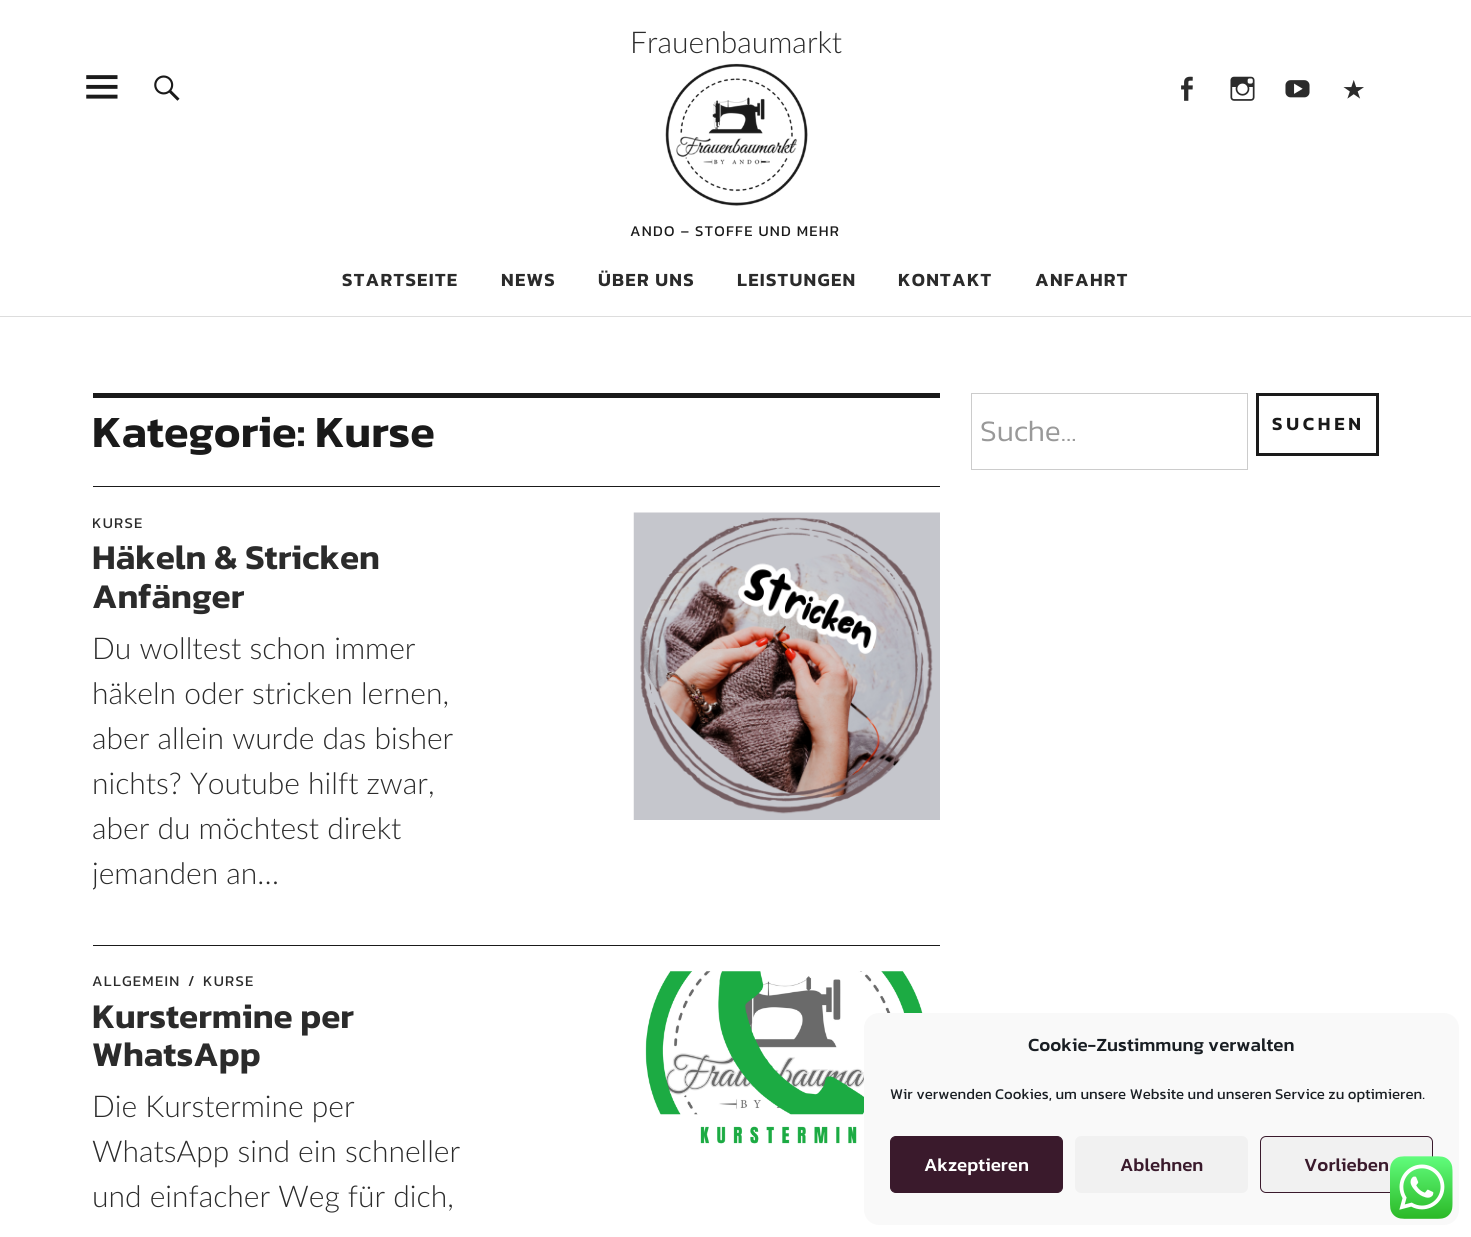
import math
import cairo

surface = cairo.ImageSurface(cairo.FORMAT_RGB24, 1471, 1237)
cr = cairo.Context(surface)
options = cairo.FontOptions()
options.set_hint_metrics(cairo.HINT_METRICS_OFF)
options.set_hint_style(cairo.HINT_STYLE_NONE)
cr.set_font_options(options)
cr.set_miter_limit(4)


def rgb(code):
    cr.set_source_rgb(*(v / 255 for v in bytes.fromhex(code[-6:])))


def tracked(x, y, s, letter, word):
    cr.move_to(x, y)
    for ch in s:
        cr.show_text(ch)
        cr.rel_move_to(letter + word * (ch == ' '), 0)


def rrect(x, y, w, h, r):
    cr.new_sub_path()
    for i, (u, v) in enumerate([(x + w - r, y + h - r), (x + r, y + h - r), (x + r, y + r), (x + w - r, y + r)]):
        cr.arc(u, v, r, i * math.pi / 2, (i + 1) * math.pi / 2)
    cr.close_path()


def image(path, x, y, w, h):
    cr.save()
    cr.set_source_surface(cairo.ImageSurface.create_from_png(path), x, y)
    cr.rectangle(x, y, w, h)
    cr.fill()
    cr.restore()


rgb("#ffffff")
cr.paint()
rgb("#dddddd")
cr.rectangle(0, 316, 1471, 1)
cr.fill()
image("img/1.png", 154, 75, 26, 26)
image("img/2.png", 86, 75, 32, 24)
image("img/3.png", 665, 63, 143, 143)
image("img/4.png", 1181, 76, 12, 25)
image("img/5.png", 1230, 76, 25, 25)
image("img/6.png", 1285, 80, 25, 18)
image("img/7.png", 1343, 80, 21, 19)
rgb("#1a1a1a")
cr.rectangle(93, 393, 847, 5)
cr.fill()
cr.rectangle(93, 486, 847, 1)
cr.fill()
image("img/8.png", 633, 512, 307, 308)
cr.rectangle(93, 945, 847, 1)
cr.fill()
image("img/9.png", 645, 971, 283, 173)
cr.rectangle(971.5, 393.5, 276, 76)
rgb("#cccccc")
cr.set_line_width(1)
cr.stroke()
cr.rectangle(1257.5, 394.5, 120, 60)
rgb("#1a1a1a")
cr.set_line_width(3)
cr.stroke()
rgb("#f9f9f9")
rrect(864, 1013, 595, 212, 15)
cr.fill()
rgb("#3a1a2c")
rrect(890.5, 1136.5, 172, 56, 5.5)
cr.fill_preserve()
cr.set_line_width(1)
cr.stroke()
rgb("#f1f1f1")
rrect(1075, 1136, 173, 57, 6)
cr.fill()
rrect(1260.5, 1136.5, 172, 56, 5.5)
cr.fill_preserve()
rgb("#3a1a2c")
cr.stroke()
image("img/10.png", 1390, 1156, 63, 63)
cr.select_font_face("Lato Light")
cr.set_font_size(30)
rgb("#2b2b2b")
cr.move_to(630, 53)
cr.show_text("Frauenbaumarkt")
cr.select_font_face("Kanit")
cr.set_font_size(15)
rgb("#1a1a1a")
tracked(630, 236, "ANDO – STOFFE UND MEHR", 1.25, 0)
cr.select_font_face("Kanit SemiBold")
cr.set_font_size(18.75)
rgb("#2b2b2b")
for x, y, s in [
    (342, 286, "STARTSEITE"),
    (501, 286, "NEWS"),
    (598, 286, "ÜBER UNS"),
    (737, 286, "LEISTUNGEN"),
    (898, 286, "KONTAKT"),
    (1035, 286, "ANFAHRT"),
]:
    tracked(x, y, s, 1.25, 0)
cr.set_font_size(45)
rgb("#1a1a1a")
cr.move_to(92, 447)
cr.show_text("Kategorie: Kurse")
cr.save()
cr.rectangle(93, 488, 847, 457)
cr.clip()
cr.select_font_face("Kanit")
cr.set_font_size(15)
rgb("#2b2b2b")
tracked(92, 528, "KURSE", 1.25, 0)
cr.restore()
cr.set_font_size(35)
rgb("#2b2b2b")
cr.move_to(92, 569)
cr.show_text("Häkeln & Stricken")
cr.move_to(92, 608)
cr.show_text("Anfänger")
cr.select_font_face("Lato Light")
cr.set_font_size(30)
for x, y, s in [
    (92, 659, "Du wolltest schon immer"),
    (92, 704, "häkeln oder stricken lernen,"),
    (92, 749, "aber allein wurde das bisher"),
    (92, 794, "nichts? Youtube hilft zwar,"),
    (92, 839, "aber du möchtest direkt"),
]:
    cr.move_to(x, y)
    cr.show_text(s)
cr.save()
cr.rectangle(93, 488, 847, 457)
cr.clip()
cr.move_to(92, 884)
cr.show_text("jemanden an…")
cr.restore()
cr.select_font_face("Kanit")
cr.set_font_size(15)
for x, y, s in [
    (92, 986, "ALLGEMEIN"),
    (188, 986, "/"),
    (203, 986, "KURSE"),
]:
    tracked(x, y, s, 1.25, 0)
cr.select_font_face("Kanit SemiBold")
cr.set_font_size(35)
cr.move_to(92, 1028)
cr.show_text("Kurstermine per")
cr.move_to(92, 1066)
cr.show_text("WhatsApp")
cr.select_font_face("Lato Light")
cr.set_font_size(30)
for x, y, s in [
    (92, 1117, "Die Kurstermine per"),
    (92, 1162, "WhatsApp sind ein schneller"),
    (92, 1207, "und einfacher Weg für dich,"),
]:
    cr.move_to(x, y)
    cr.show_text(s)
cr.select_font_face("Kanit Light")
rgb("#999999")
cr.move_to(980, 441)
cr.show_text("Suche...")
cr.select_font_face("Kanit SemiBold")
cr.set_font_size(18.75)
rgb("#1a1a1a")
tracked(1272, 430, "SUCHEN", 3.75, 0)
cr.select_font_face("Kanit Medium")
rgb("#191e23")
cr.move_to(1028, 1051)
cr.show_text("Cookie-Zustimmung verwalten")
cr.select_font_face("Kanit")
cr.set_font_size(15)
cr.move_to(890, 1099)
cr.show_text("Wir verwenden Cookies, um unsere Website und unseren Service zu optimieren.")
cr.select_font_face("Kanit Medium")
cr.set_font_size(18.75)
rgb("#ffffff")
cr.move_to(924, 1171)
cr.show_text("Akzeptieren")
rgb("#3a1a2c")
cr.move_to(1120, 1171)
cr.show_text("Ablehnen")
cr.move_to(1304, 1171)
cr.show_text("Vorlieben")
surface.write_to_png("page.png")
